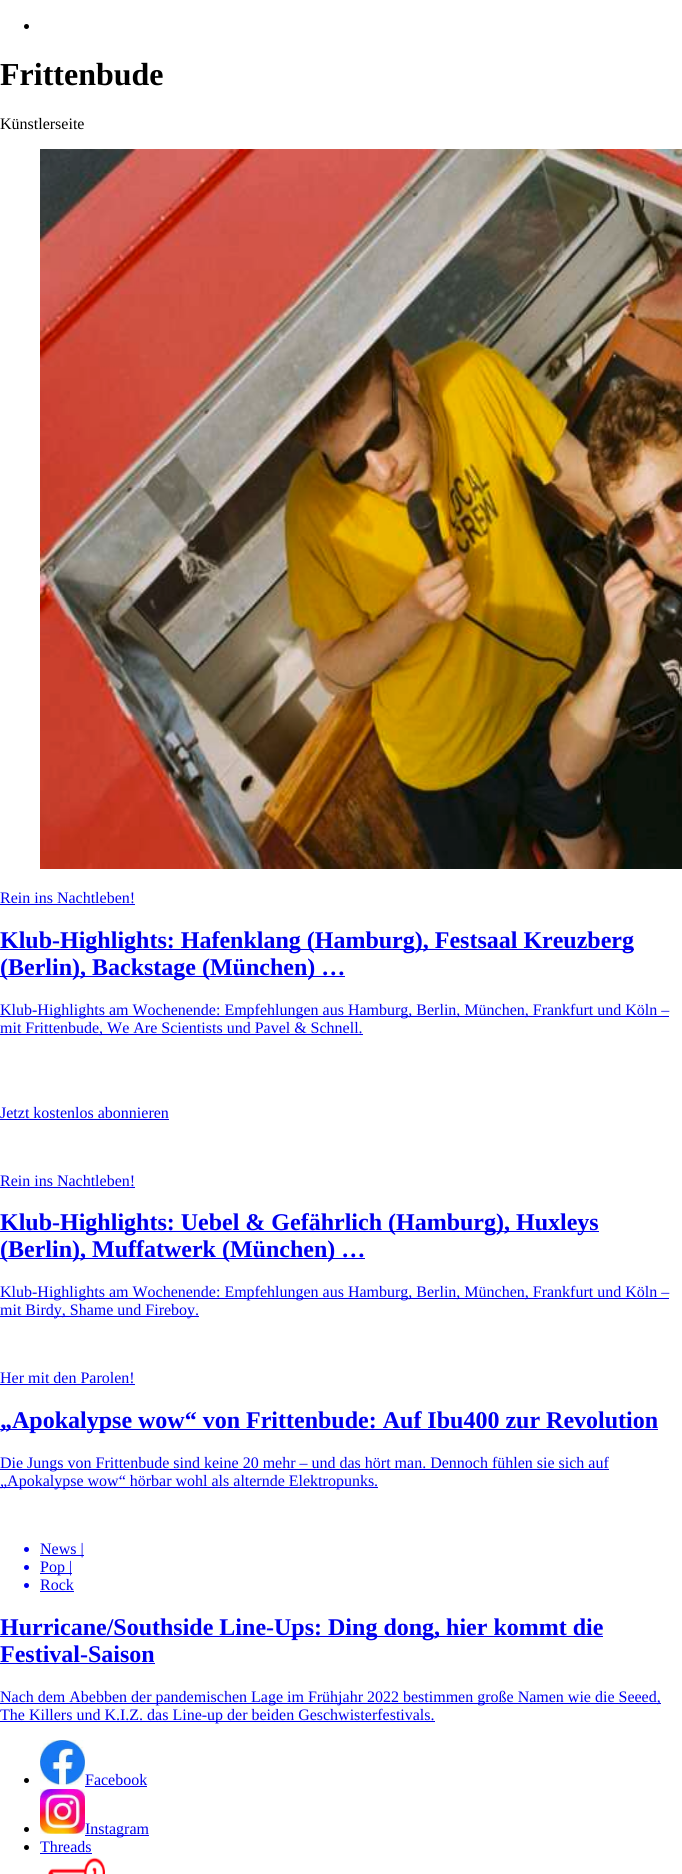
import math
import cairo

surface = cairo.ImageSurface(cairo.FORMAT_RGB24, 682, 1874)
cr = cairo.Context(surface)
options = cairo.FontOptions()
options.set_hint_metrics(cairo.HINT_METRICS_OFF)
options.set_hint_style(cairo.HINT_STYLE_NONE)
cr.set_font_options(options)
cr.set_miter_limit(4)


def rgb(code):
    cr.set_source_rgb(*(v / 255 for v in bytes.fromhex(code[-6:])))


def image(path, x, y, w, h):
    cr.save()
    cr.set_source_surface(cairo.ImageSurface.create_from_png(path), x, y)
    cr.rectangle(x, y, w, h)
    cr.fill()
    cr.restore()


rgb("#ffffff")
cr.paint()
rgb("#000000")
cr.arc(26.5, 26.5, 2.5, 0, 2 * math.pi)
cr.fill()
image("img/1.png", 40, 149, 642, 720)
for x, y, w, h, color in [
    (0, 904, 135, 1, "#0000ee"),
    (0, 949, 634, 1, "#0000ee"),
    (0, 976, 345, 1, "#0000ee"),
    (0, 1016, 669, 1, "#0000ee"),
    (0, 1034, 363, 1, "#0000ee"),
    (0, 1119, 169, 1, "#0000ee"),
    (0, 1187, 135, 1, "#0000ee"),
    (0, 1231, 599, 1, "#0000ee"),
    (0, 1258, 365, 1, "#0000ee"),
    (0, 1298, 669, 1, "#0000ee"),
    (0, 1316, 199, 1, "#0000ee"),
    (0, 1384, 135, 1, "#0000ee"),
    (0, 1429, 658, 1, "#0000ee"),
    (0, 1469, 609, 1, "#0000ee"),
    (0, 1487, 378, 1, "#0000ee"),
]:
    rgb(color)
    cr.rectangle(x, y, w, h)
    cr.fill()
cr.arc(26.5, 1549.5, 2.5, 0, 2 * math.pi)
cr.fill()
cr.rectangle(40, 1555, 44, 1)
cr.fill()
cr.arc(26.5, 1567.5, 2.5, 0, 2 * math.pi)
cr.fill()
cr.rectangle(40, 1573, 32, 1)
cr.fill()
cr.arc(26.5, 1585.5, 2.5, 0, 2 * math.pi)
cr.fill()
for x, y, w, h, color in [
    (40, 1591, 34, 1, "#0000ee"),
    (0, 1636, 603, 1, "#0000ee"),
    (0, 1663, 155, 1, "#0000ee"),
    (0, 1703, 661, 1, "#0000ee"),
    (0, 1721, 435, 1, "#0000ee"),
]:
    rgb(color)
    cr.rectangle(x, y, w, h)
    cr.fill()
rgb("#000000")
cr.arc(26.5, 1780.5, 2.5, 0, 2 * math.pi)
cr.fill()
image("img/2.png", 40, 1740, 45, 45)
rgb("#0000ee")
cr.rectangle(85, 1786, 62, 1)
cr.fill()
rgb("#000000")
cr.arc(26.5, 1829.5, 2.5, 0, 2 * math.pi)
cr.fill()
image("img/3.png", 40, 1789, 45, 45)
rgb("#0000ee")
cr.rectangle(85, 1835, 64, 1)
cr.fill()
rgb("#000000")
cr.arc(26.5, 1847.5, 2.5, 0, 2 * math.pi)
cr.fill()
rgb("#0000ee")
cr.rectangle(40, 1853, 52, 1)
cr.fill()
image("img/4.png", 48, 1857, 57, 17)
cr.select_font_face("Liberation Serif", cairo.FONT_SLANT_NORMAL, cairo.FONT_WEIGHT_BOLD)
cr.set_font_size(32)
rgb("#000000")
cr.move_to(0, 85)
cr.show_text("Frittenbude")
cr.select_font_face("Liberation Serif")
cr.set_font_size(16)
cr.move_to(0, 129)
cr.show_text("Künstlerseite")
rgb("#0000ee")
cr.move_to(0, 903)
cr.show_text("Rein ins Nachtleben!")
cr.select_font_face("Liberation Serif", cairo.FONT_SLANT_NORMAL, cairo.FONT_WEIGHT_BOLD)
cr.set_font_size(24)
cr.move_to(0, 948)
cr.show_text("Klub-Highlights: Hafenklang (Hamburg), Festsaal Kreuzberg")
cr.move_to(0, 975)
cr.show_text("(Berlin), Backstage (München) …")
cr.select_font_face("Liberation Serif")
cr.set_font_size(16)
for x, y, s in [
    (0, 1015, "Klub-Highlights am Wochenende: Empfehlungen aus Hamburg, Berlin, München, Frankfurt und Köln –"),
    (0, 1033, "mit Frittenbude, We Are Scientists und Pavel & Schnell."),
    (0, 1118, "Jetzt kostenlos abonnieren"),
    (0, 1186, "Rein ins Nachtleben!"),
]:
    cr.move_to(x, y)
    cr.show_text(s)
cr.select_font_face("Liberation Serif", cairo.FONT_SLANT_NORMAL, cairo.FONT_WEIGHT_BOLD)
cr.set_font_size(24)
cr.move_to(0, 1230)
cr.show_text("Klub-Highlights: Uebel & Gefährlich (Hamburg), Huxleys")
cr.move_to(0, 1257)
cr.show_text("(Berlin), Muffatwerk (München) …")
cr.select_font_face("Liberation Serif")
cr.set_font_size(16)
for x, y, s in [
    (0, 1297, "Klub-Highlights am Wochenende: Empfehlungen aus Hamburg, Berlin, München, Frankfurt und Köln –"),
    (0, 1315, "mit Birdy, Shame und Fireboy."),
    (0, 1383, "Her mit den Parolen!"),
]:
    cr.move_to(x, y)
    cr.show_text(s)
cr.select_font_face("Liberation Serif", cairo.FONT_SLANT_NORMAL, cairo.FONT_WEIGHT_BOLD)
cr.set_font_size(24)
cr.move_to(0, 1428)
cr.show_text("„Apokalypse wow“ von Frittenbude: Auf Ibu400 zur Revolution")
cr.select_font_face("Liberation Serif")
cr.set_font_size(16)
for x, y, s in [
    (0, 1468, "Die Jungs von Frittenbude sind keine 20 mehr – und das hört man. Dennoch fühlen sie sich auf"),
    (0, 1486, "„Apokalypse wow“ hörbar wohl als alternde Elektropunks."),
    (40, 1554, "News |"),
    (40, 1572, "Pop |"),
    (40, 1590, "Rock"),
]:
    cr.move_to(x, y)
    cr.show_text(s)
cr.select_font_face("Liberation Serif", cairo.FONT_SLANT_NORMAL, cairo.FONT_WEIGHT_BOLD)
cr.set_font_size(24)
cr.move_to(0, 1635)
cr.show_text("Hurricane/Southside Line-Ups: Ding dong, hier kommt die")
cr.move_to(0, 1662)
cr.show_text("Festival-Saison")
cr.select_font_face("Liberation Serif")
cr.set_font_size(16)
for x, y, s in [
    (0, 1702, "Nach dem Abebben der pandemischen Lage im Frühjahr 2022 bestimmen große Namen wie die Seeed,"),
    (0, 1720, "The Killers und K.I.Z. das Line-up der beiden Geschwisterfestivals."),
    (85, 1785, "Facebook"),
    (85, 1834, "Instagram"),
    (40, 1852, "Threads"),
]:
    cr.move_to(x, y)
    cr.show_text(s)
surface.write_to_png("page.png")
